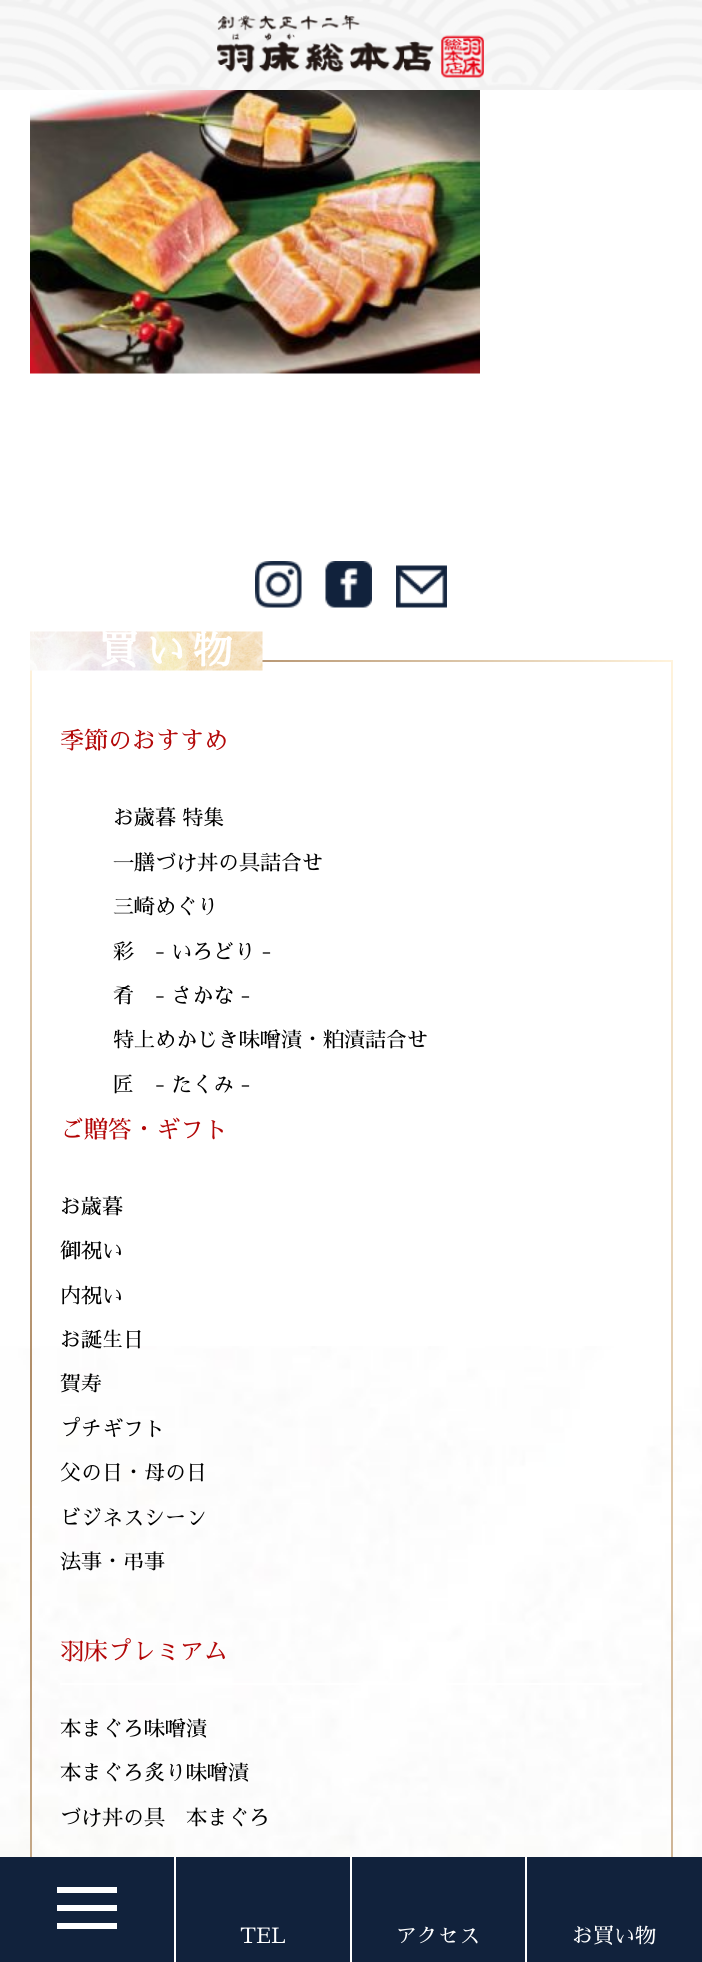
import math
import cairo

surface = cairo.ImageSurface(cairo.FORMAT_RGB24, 702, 1962)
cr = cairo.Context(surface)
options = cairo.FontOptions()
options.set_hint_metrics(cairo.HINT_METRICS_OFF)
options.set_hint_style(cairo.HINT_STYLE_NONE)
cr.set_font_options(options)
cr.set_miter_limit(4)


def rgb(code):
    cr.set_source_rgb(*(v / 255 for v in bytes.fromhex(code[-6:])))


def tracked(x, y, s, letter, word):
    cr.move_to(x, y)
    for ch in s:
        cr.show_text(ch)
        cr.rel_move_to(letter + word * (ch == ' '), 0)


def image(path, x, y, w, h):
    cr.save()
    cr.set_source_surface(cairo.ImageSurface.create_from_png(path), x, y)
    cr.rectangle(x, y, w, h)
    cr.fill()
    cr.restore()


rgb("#ffffff")
cr.paint()
image("img/1.png", 0, 0, 702, 90)
image("img/2.png", 217, 15, 267, 63)
image("img/3.png", 30, 90, 450, 284)
image("img/4.png", 0, 1346, 702, 511)
image("img/5.png", 255, 561, 47, 47)
image("img/6.png", 325, 561, 47, 47)
image("img/7.png", 396, 565, 51, 43)
gradient = cairo.LinearGradient(31, 660, 31, 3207)
gradient.add_color_stop_rgba(0, 1, 0.953, 0.863, 1)
gradient.add_color_stop_rgba(0.28, 0.69, 0.553, 0.408, 1)
gradient.add_color_stop_rgba(1, 1, 0.953, 0.863, 1)
cr.set_source(gradient)
cr.rectangle(30, 670, 2, 1187)
cr.fill()
gradient = cairo.LinearGradient(30, 661, 672, 661)
gradient.add_color_stop_rgba(0, 1, 0.953, 0.863, 1)
gradient.add_color_stop_rgba(0.28, 0.69, 0.553, 0.408, 1)
gradient.add_color_stop_rgba(1, 1, 0.953, 0.863, 1)
cr.set_source(gradient)
cr.rectangle(262, 660, 410, 2)
cr.fill()
image("img/8.png", 30, 631, 233, 40)
rgb("#ffffff")
cr.rectangle(60, 1683, 582, 2)
cr.fill()
gradient = cairo.LinearGradient(671, 660, 671, 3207)
gradient.add_color_stop_rgba(0, 1, 0.953, 0.863, 1)
gradient.add_color_stop_rgba(0.78, 0.69, 0.553, 0.408, 1)
gradient.add_color_stop_rgba(1, 1, 0.953, 0.863, 1)
cr.set_source(gradient)
cr.rectangle(671, 660, 2, 1197)
cr.fill()
for x, y, w, h, color in [
    (0, 1857, 702, 105, "#11223c"),
    (174, 1857, 2, 105, "#ffffff"),
    (57, 1887, 60, 6, "#ffffff"),
    (57, 1905, 60, 6, "#ffffff"),
    (57, 1923, 60, 6, "#ffffff"),
    (350, 1857, 2, 105, "#ffffff"),
    (525, 1857, 2, 105, "#ffffff"),
]:
    rgb(color)
    cr.rectangle(x, y, w, h)
    cr.fill()
cr.select_font_face("Sawarabi Mincho", cairo.FONT_SLANT_NORMAL, cairo.FONT_WEIGHT_BOLD)
cr.set_font_size(39)
tracked(99, 664, "買い物", 8, 0)
cr.select_font_face("Sawarabi Mincho")
cr.set_font_size(24)
rgb("#b30808")
cr.move_to(60, 749)
cr.show_text("季節のおすすめ")
cr.set_font_size(21)
rgb("#000000")
for x, y, s in [
    (113, 825, "お歳暮 特集"),
    (113, 870, "一膳づけ丼の具詰合せ"),
    (113, 914, "三崎めぐり"),
    (113, 959, "彩　- いろどり -"),
    (113, 1003, "肴　- さかな -"),
    (113, 1047, "特上めかじき味噌漬・粕漬詰合せ"),
    (113, 1092, "匠　- たくみ -"),
]:
    cr.move_to(x, y)
    cr.show_text(s)
cr.set_font_size(24)
rgb("#b30808")
cr.move_to(60, 1138)
cr.show_text("ご贈答・ギフト")
cr.set_font_size(21)
rgb("#000000")
for x, y, s in [
    (60, 1214, "お歳暮"),
    (60, 1258, "御祝い"),
    (60, 1303, "内祝い"),
    (60, 1347, "お誕生日"),
    (60, 1391, "賀寿"),
    (60, 1436, "プチギフト"),
    (60, 1480, "父の日・母の日"),
    (60, 1525, "ビジネスシーン"),
    (60, 1569, "法事・弔事"),
]:
    cr.move_to(x, y)
    cr.show_text(s)
cr.set_font_size(24)
rgb("#b30808")
cr.move_to(60, 1660)
cr.show_text("羽床プレミアム")
cr.set_font_size(21)
rgb("#000000")
for x, y, s in [
    (60, 1736, "本まぐろ味噌漬"),
    (60, 1780, "本まぐろ炙り味噌漬"),
    (60, 1825, "づけ丼の具　本まぐろ"),
]:
    cr.move_to(x, y)
    cr.show_text(s)
rgb("#ffffff")
for x, y, s in [
    (240, 1943, "TEL"),
    (396, 1943, "アクセス"),
    (572, 1943, "お買い物"),
]:
    cr.move_to(x, y)
    cr.show_text(s)
surface.write_to_png("page.png")
